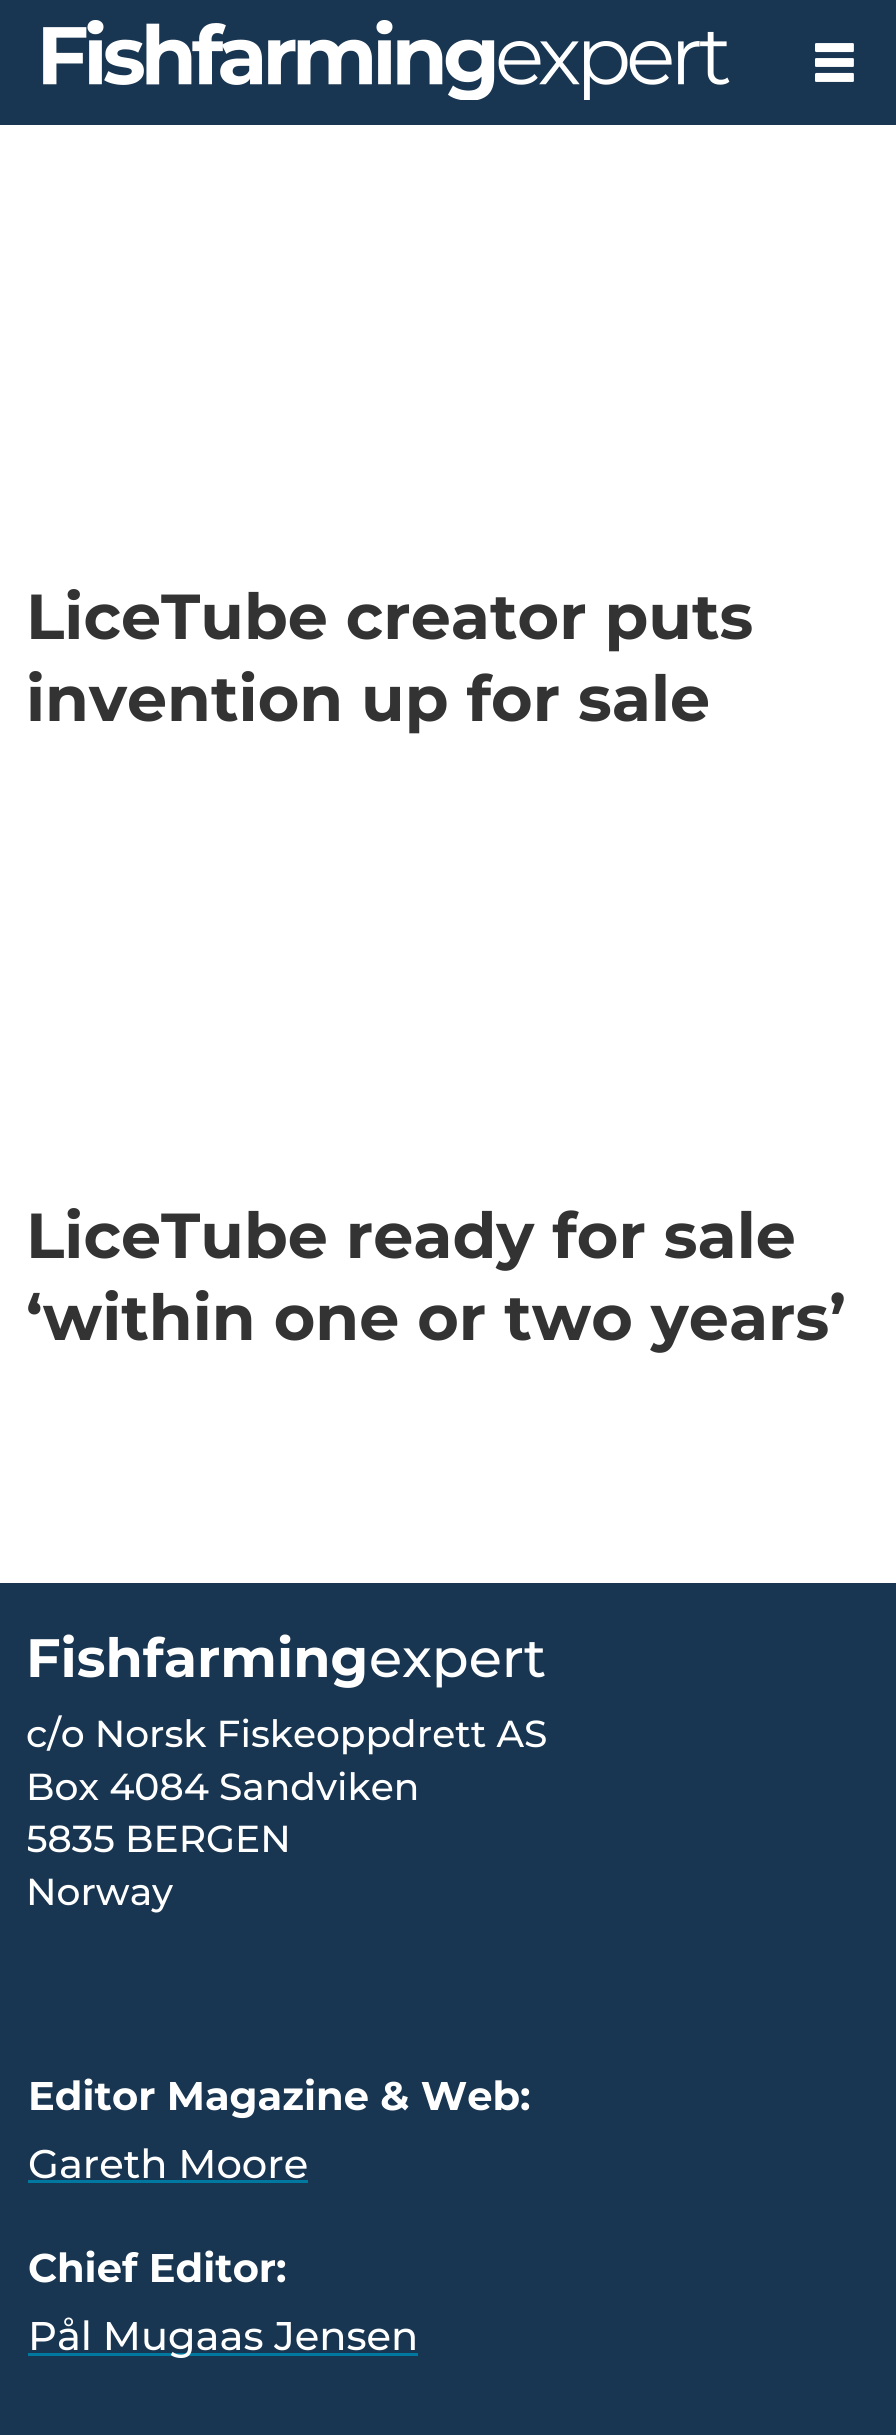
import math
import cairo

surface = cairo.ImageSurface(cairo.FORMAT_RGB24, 896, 2435)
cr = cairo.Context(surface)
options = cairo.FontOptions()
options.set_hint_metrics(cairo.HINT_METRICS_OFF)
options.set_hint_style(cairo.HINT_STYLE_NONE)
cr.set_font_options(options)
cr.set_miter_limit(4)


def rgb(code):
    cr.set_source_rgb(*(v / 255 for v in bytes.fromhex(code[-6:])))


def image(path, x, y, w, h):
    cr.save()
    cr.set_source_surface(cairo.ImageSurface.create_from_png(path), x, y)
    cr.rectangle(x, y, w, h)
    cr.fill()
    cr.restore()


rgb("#ffffff")
cr.paint()
rgb("#183551")
cr.rectangle(0, 0, 896, 125)
cr.fill()
image("img/1.png", 43, 20, 687, 80)
image("img/2.png", 815, 43, 39, 39)
for x, y, w, h, color in [
    (0, 1583, 896, 852, "#183551"),
    (28, 2180, 280, 3, "#0078a0"),
    (28, 2353, 390, 3, "#0078a0"),
]:
    rgb(color)
    cr.rectangle(x, y, w, h)
    cr.fill()
cr.select_font_face("Montserrat", cairo.FONT_SLANT_NORMAL, cairo.FONT_WEIGHT_BOLD)
cr.set_font_size(63.5)
rgb("#333333")
for x, y, s in [
    (26, 639, "LiceTube creator puts"),
    (26, 721, "invention up for sale"),
    (26, 1258, "LiceTube ready for sale"),
    (26, 1340, "‘within one or two years’"),
]:
    cr.move_to(x, y)
    cr.show_text(s)
cr.set_font_size(54)
rgb("#ffffff")
cr.move_to(26, 1677)
cr.show_text("Fishfarming")
cr.select_font_face("Montserrat Medium")
cr.move_to(369, 1677)
cr.show_text("expert")
cr.set_font_size(37.6)
cr.move_to(26, 1747)
cr.show_text("c/o Norsk Fiskeoppdrett AS")
cr.move_to(26, 1800)
cr.show_text("Box 4084 Sandviken")
cr.save()
cr.rectangle(28, 1610, 842, 315)
cr.clip()
cr.move_to(26, 1852)
cr.show_text("5835 BERGEN")
cr.restore()
cr.move_to(26, 1905)
cr.show_text("Norway")
cr.select_font_face("Montserrat", cairo.FONT_SLANT_NORMAL, cairo.FONT_WEIGHT_BOLD)
cr.set_font_size(40)
cr.move_to(28, 2110)
cr.show_text("Editor Magazine & Web:")
cr.select_font_face("Montserrat Medium")
cr.move_to(28, 2178)
cr.show_text("Gareth Moore")
cr.select_font_face("Montserrat", cairo.FONT_SLANT_NORMAL, cairo.FONT_WEIGHT_BOLD)
cr.move_to(28, 2282)
cr.show_text("Chief Editor:")
cr.select_font_face("Montserrat Medium")
cr.move_to(28, 2350)
cr.show_text("Pål Mugaas Jensen")
surface.write_to_png("page.png")
